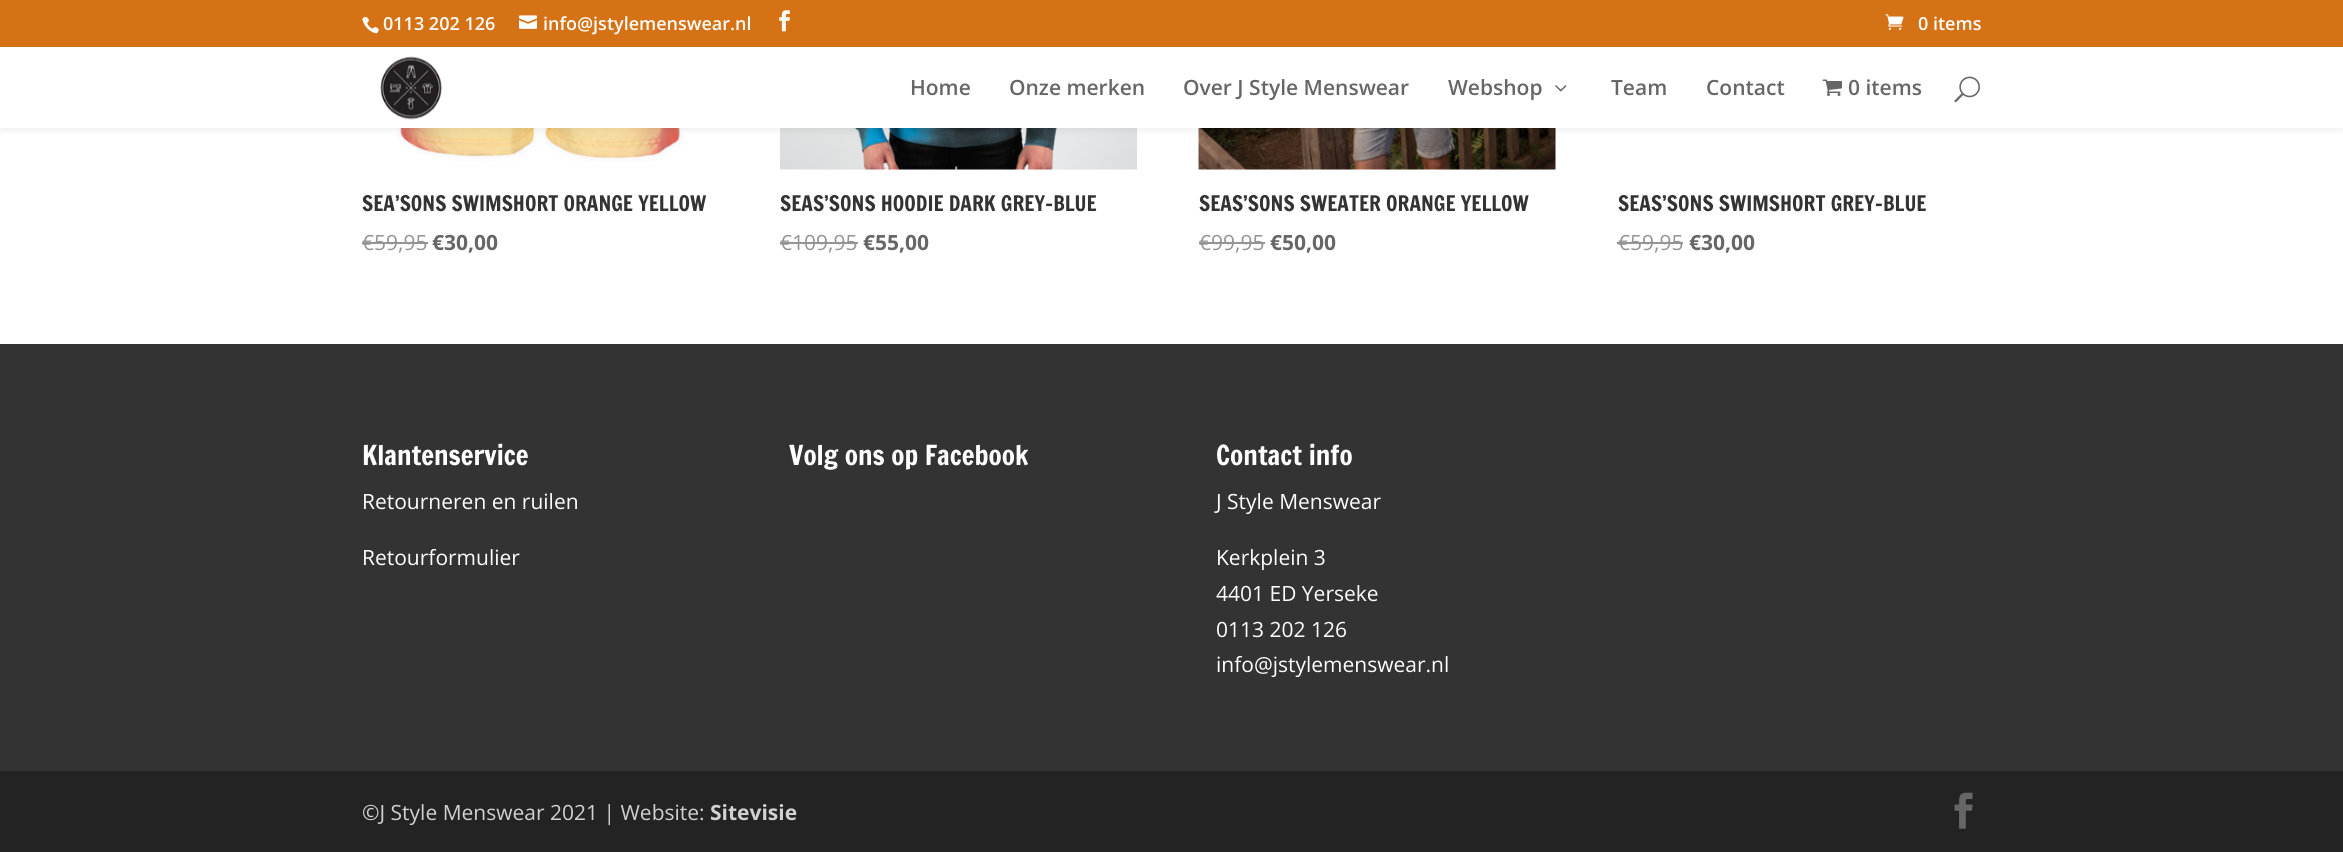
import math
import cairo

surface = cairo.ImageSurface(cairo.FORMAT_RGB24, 2343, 852)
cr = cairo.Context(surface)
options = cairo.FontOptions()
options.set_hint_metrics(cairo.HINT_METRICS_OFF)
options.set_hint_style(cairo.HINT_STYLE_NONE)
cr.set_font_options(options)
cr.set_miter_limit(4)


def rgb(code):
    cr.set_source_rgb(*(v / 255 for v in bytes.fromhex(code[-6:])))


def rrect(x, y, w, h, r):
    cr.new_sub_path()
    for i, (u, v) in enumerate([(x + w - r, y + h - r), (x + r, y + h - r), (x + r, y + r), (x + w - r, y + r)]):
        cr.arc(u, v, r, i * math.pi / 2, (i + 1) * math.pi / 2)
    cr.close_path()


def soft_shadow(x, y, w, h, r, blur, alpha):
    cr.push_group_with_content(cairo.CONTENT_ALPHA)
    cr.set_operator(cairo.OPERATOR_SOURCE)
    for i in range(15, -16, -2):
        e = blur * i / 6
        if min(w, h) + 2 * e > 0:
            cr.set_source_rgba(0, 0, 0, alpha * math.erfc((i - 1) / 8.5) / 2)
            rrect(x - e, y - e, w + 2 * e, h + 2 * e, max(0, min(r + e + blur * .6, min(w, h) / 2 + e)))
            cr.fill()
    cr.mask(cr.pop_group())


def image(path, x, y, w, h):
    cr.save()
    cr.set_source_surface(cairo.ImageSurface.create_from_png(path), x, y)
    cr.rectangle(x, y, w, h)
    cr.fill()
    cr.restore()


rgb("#ffffff")
cr.paint()
image("img/9.png", 397, 128, 286, 34)
image("img/10.png", 780, 128, 357, 42)
image("img/11.png", 1198, 128, 358, 42)
rgb("#000000")
soft_shadow(0, 47, 2343, 81, 0, 5, 0.1)
rgb("#d67216")
cr.rectangle(0, 0, 2343, 47)
cr.fill()
image("img/1.png", 362, 16, 17, 18)
image("img/2.png", 519, 15, 18, 14)
image("img/3.png", 779, 10, 11, 22)
image("img/4.png", 1885, 14, 19, 16)
rgb("#ffffff")
cr.rectangle(0, 47, 2343, 81)
cr.fill()
image("img/5.png", 380, 56, 62, 64)
image("img/6.png", 1555, 85, 12, 7)
image("img/7.png", 1822, 79, 20, 17)
image("img/8.png", 1954, 76, 26, 27)
for x, y, w, h, color in [
    (362, 242, 66, 2, "#949494"),
    (780, 242, 78, 2, "#949494"),
    (1199, 242, 66, 2, "#949494"),
    (1617, 242, 66, 2, "#949494"),
    (0, 344, 2343, 427, "#333333"),
    (0, 771, 2343, 81, "#232323"),
]:
    rgb(color)
    cr.rectangle(x, y, w, h)
    cr.fill()
image("img/12.png", 1954, 792, 19, 37)
cr.select_font_face("Open Sans SemiBold")
cr.set_font_size(18)
rgb("#ffffff")
for x, y, s in [
    (383, 30, "0113 202 126"),
    (543, 30, "info@jstylemenswear.nl"),
    (1918, 30, "0 items"),
]:
    cr.move_to(x, y)
    cr.show_text(s)
cr.set_font_size(21)
rgb("#666666")
for x, y, s in [
    (910, 95, "Home"),
    (1009, 95, "Onze merken"),
    (1183, 95, "Over J Style Menswear"),
    (1448, 95, "Webshop"),
    (1611, 95, "Team"),
    (1706, 95, "Contact"),
    (1848, 95, "0 items"),
]:
    cr.move_to(x, y)
    cr.show_text(s)
cr.select_font_face("Francois One")
rgb("#333333")
cr.move_to(362, 211)
cr.show_text("SEA’SONS SWIMSHORT ORANGE YELLOW")
cr.select_font_face("Open Sans")
rgb("#949494")
cr.move_to(362, 250)
cr.show_text("€59,95")
cr.select_font_face("Open Sans", cairo.FONT_SLANT_NORMAL, cairo.FONT_WEIGHT_BOLD)
rgb("#666666")
cr.move_to(432, 250)
cr.show_text("€30,00")
cr.select_font_face("Francois One")
rgb("#333333")
cr.move_to(780, 211)
cr.show_text("SEAS’SONS HOODIE DARK GREY-BLUE")
cr.select_font_face("Open Sans")
rgb("#949494")
cr.move_to(780, 250)
cr.show_text("€109,95")
cr.select_font_face("Open Sans", cairo.FONT_SLANT_NORMAL, cairo.FONT_WEIGHT_BOLD)
rgb("#666666")
cr.move_to(863, 250)
cr.show_text("€55,00")
cr.select_font_face("Francois One")
rgb("#333333")
cr.move_to(1199, 211)
cr.show_text("SEAS’SONS SWEATER ORANGE YELLOW")
cr.select_font_face("Open Sans")
rgb("#949494")
cr.move_to(1199, 250)
cr.show_text("€99,95")
cr.select_font_face("Open Sans", cairo.FONT_SLANT_NORMAL, cairo.FONT_WEIGHT_BOLD)
rgb("#666666")
cr.move_to(1270, 250)
cr.show_text("€50,00")
cr.select_font_face("Francois One")
rgb("#333333")
cr.move_to(1618, 211)
cr.show_text("SEAS’SONS SWIMSHORT GREY-BLUE")
cr.select_font_face("Open Sans")
rgb("#949494")
cr.move_to(1618, 250)
cr.show_text("€59,95")
cr.select_font_face("Open Sans", cairo.FONT_SLANT_NORMAL, cairo.FONT_WEIGHT_BOLD)
rgb("#666666")
cr.move_to(1689, 250)
cr.show_text("€30,00")
cr.select_font_face("Francois One")
cr.set_font_size(27)
rgb("#ffffff")
cr.move_to(362, 465)
cr.show_text("Klantenservice")
cr.select_font_face("Open Sans")
cr.set_font_size(21)
cr.move_to(362, 509)
cr.show_text("Retourneren en ruilen")
cr.move_to(362, 565)
cr.show_text("Retourformulier")
cr.select_font_face("Francois One")
cr.set_font_size(27)
cr.move_to(789, 465)
cr.show_text("Volg ons op Facebook")
cr.move_to(1216, 465)
cr.show_text("Contact info")
cr.select_font_face("Open Sans")
cr.set_font_size(21)
for x, y, s in [
    (1216, 509, "J Style Menswear"),
    (1216, 565, "Kerkplein 3"),
    (1216, 601, "4401 ED Yerseke"),
    (1216, 637, "0113 202 126"),
    (1216, 672, "info@jstylemenswear.nl"),
]:
    cr.move_to(x, y)
    cr.show_text(s)
rgb("#d1d1d1")
cr.move_to(362, 820)
cr.show_text("©J Style Menswear 2021 | Website:")
cr.select_font_face("Open Sans", cairo.FONT_SLANT_NORMAL, cairo.FONT_WEIGHT_BOLD)
cr.move_to(710, 820)
cr.show_text("Sitevisie")
surface.write_to_png("page.png")
